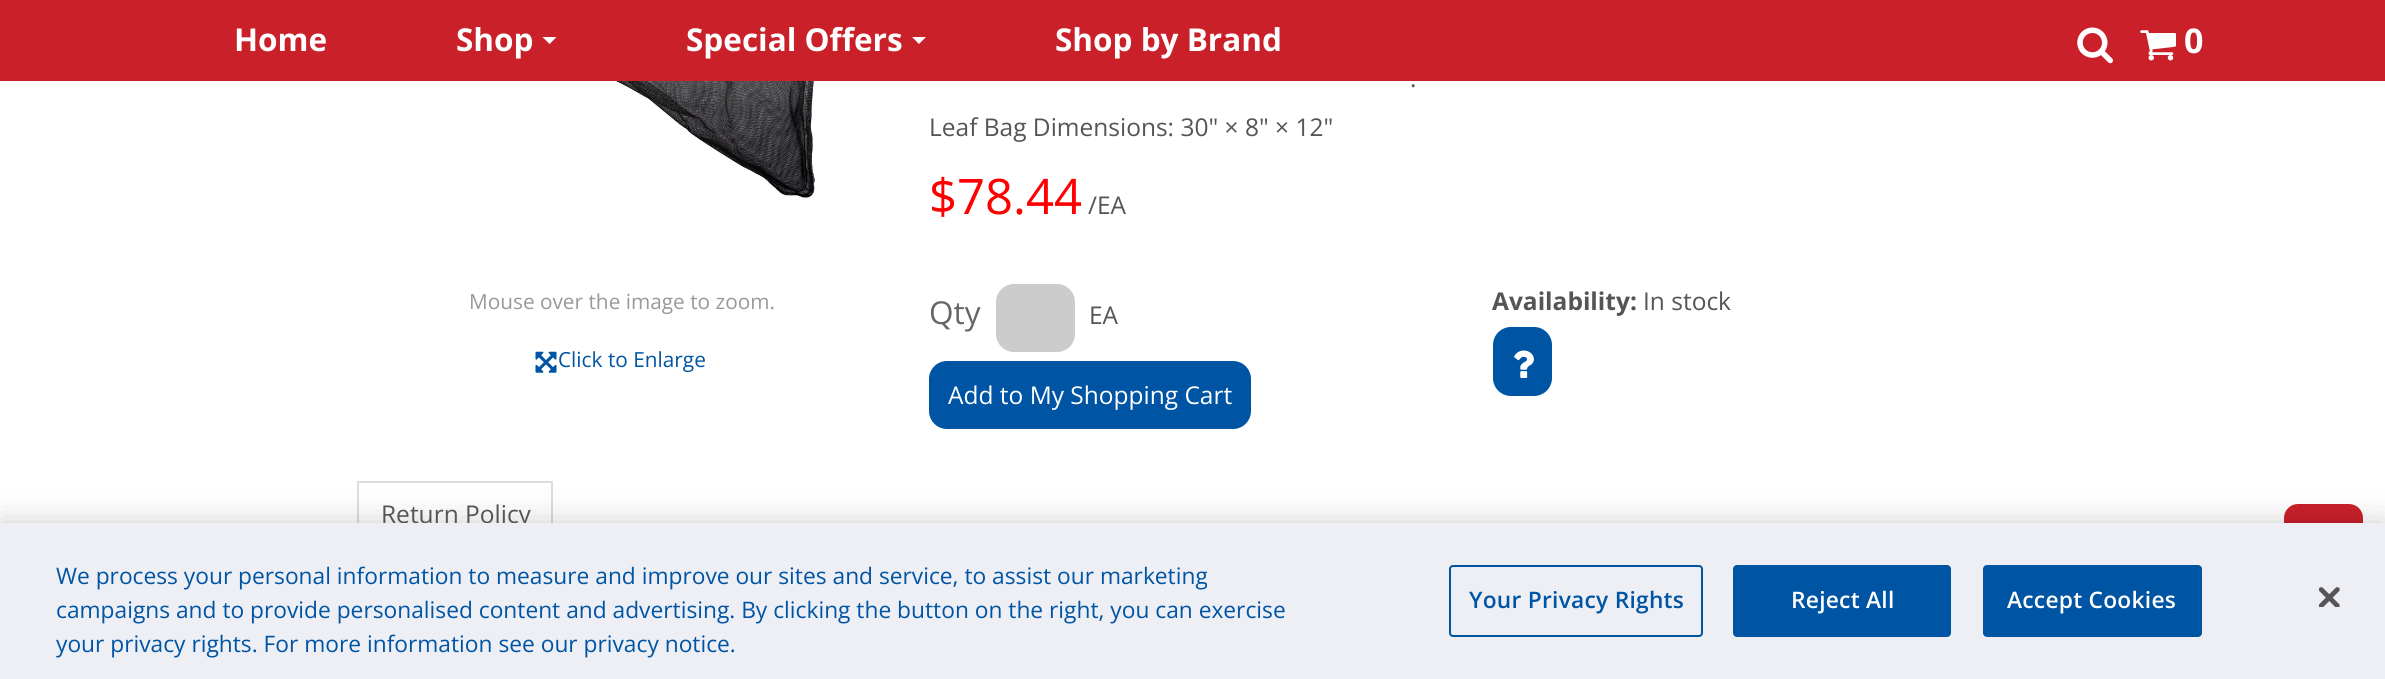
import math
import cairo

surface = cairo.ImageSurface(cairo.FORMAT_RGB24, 2385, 679)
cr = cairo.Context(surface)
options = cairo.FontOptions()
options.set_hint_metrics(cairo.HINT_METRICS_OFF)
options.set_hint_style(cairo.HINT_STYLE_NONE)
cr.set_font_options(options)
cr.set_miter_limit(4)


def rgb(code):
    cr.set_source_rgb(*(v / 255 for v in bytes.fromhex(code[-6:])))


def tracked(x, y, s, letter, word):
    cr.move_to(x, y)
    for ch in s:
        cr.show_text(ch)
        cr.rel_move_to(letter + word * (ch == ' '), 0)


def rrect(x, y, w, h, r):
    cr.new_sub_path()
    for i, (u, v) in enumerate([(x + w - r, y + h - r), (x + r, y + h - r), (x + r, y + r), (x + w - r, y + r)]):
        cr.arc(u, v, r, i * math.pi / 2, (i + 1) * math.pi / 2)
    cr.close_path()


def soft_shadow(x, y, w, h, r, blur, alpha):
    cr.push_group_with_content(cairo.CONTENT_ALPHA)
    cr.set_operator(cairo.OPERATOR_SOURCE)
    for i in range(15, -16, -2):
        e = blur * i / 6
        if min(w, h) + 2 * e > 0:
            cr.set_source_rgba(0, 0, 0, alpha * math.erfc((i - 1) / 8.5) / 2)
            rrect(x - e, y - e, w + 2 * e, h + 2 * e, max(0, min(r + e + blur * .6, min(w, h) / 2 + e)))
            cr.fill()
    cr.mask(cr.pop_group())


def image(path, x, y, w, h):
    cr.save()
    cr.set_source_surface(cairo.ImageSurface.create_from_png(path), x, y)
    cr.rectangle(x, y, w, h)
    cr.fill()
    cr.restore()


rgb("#ffffff")
cr.paint()
rgb("#c9202a")
cr.rectangle(0, 0, 2385, 81)
cr.fill()
rgb("#ffffff")
cr.new_path()
cr.move_to(542.5, 37)
cr.line_to(556.5, 37)
cr.line_to(549.5, 44)
cr.close_path()
cr.fill()
cr.new_path()
cr.move_to(912, 37)
cr.line_to(926, 37)
cr.line_to(919, 44)
cr.close_path()
cr.fill()
image("img/1.png", 2077, 27, 36, 37)
image("img/2.png", 2140, 30, 36, 31)
image("img/3.png", 426, 81, 389, 117)
image("img/4.png", 535, 351, 22, 22)
rgb("#cccccc")
rrect(996, 284, 79, 68, 18)
cr.fill()
rgb("#0054a4")
rrect(930, 362, 320, 66, 17)
cr.fill_preserve()
cr.stroke()
rrect(1494, 328, 57, 67, 17)
cr.fill_preserve()
cr.stroke()
image("img/5.png", 1514, 350, 20, 28)
rgb("#dddddd")
cr.rectangle(357, 481, 196, 2)
cr.fill()
cr.new_path()
cr.move_to(553, 481)
cr.line_to(553, 548)
cr.line_to(551, 546)
cr.line_to(551, 483)
cr.close_path()
cr.fill()
cr.new_path()
cr.move_to(357, 548)
cr.line_to(357, 481)
cr.line_to(359, 483)
cr.line_to(359, 546)
cr.close_path()
cr.fill()
rgb("#c9202a")
rrect(2284, 504, 79, 79, 14)
cr.fill()
rgb("#000000")
soft_shadow(0, 523, 2385, 156, 0, 16, 0.2)
cr.select_font_face("Open Sans", cairo.FONT_SLANT_NORMAL, cairo.FONT_WEIGHT_BOLD)
cr.set_font_size(31.5)
rgb("#ffffff")
for x, y, s in [
    (234, 51, "Home"),
    (456, 51, "Shop"),
    (686, 51, "Special Offers"),
    (1055, 51, "Shop by Brand"),
]:
    cr.move_to(x, y)
    cr.show_text(s)
cr.set_font_size(34)
cr.move_to(2184, 53)
cr.show_text("0")
cr.select_font_face("Open Sans")
cr.set_font_size(20.8)
rgb("#999999")
cr.move_to(469, 309)
cr.show_text("Mouse over the image to zoom.")
rgb("#0054a4")
cr.move_to(558, 367)
cr.show_text("Click to Enlarge")
cr.set_font_size(24.5)
rgb("#555555")
cr.move_to(1410, 87)
cr.show_text(".")
cr.move_to(929, 136)
cr.show_text("Leaf Bag Dimensions: 30\" × 8\" × 12\"")
cr.set_font_size(49)
rgb("#ff0000")
cr.move_to(929, 214)
cr.show_text("$78.44")
cr.set_font_size(24.5)
rgb("#555555")
cr.move_to(1088, 214)
cr.show_text("/EA")
cr.set_font_size(31.5)
rgb("#666666")
cr.move_to(929, 324)
cr.show_text("Qty")
cr.set_font_size(24.5)
rgb("#555555")
cr.move_to(1089, 324)
cr.show_text("EA")
rgb("#ffffff")
cr.move_to(948, 404)
cr.show_text("Add to My Shopping Cart")
cr.select_font_face("Open Sans", cairo.FONT_SLANT_NORMAL, cairo.FONT_WEIGHT_BOLD)
rgb("#555555")
cr.move_to(1492, 310)
cr.show_text("Availability:")
cr.select_font_face("Open Sans")
cr.move_to(1643, 310)
cr.show_text("In stock")
cr.move_to(381, 523)
cr.show_text("Return Policy")
rgb("#edeff5")
cr.rectangle(0, 523, 2385, 156)
cr.fill()
cr.set_font_size(22.75)
rgb("#0054a4")
for x, y, s in [
    (56, 584, "We process your personal information to measure and improve our sites and service, to assist our marketing"),
    (56, 618, "campaigns and to provide personalised content and advertising. By clicking the button on the right, you can exercise"),
    (56, 652, "your privacy rights. For more information see our privacy notice."),
]:
    cr.move_to(x, y)
    cr.show_text(s)
rrect(1450, 566, 252, 70, 3)
cr.stroke()
cr.select_font_face("Open Sans SemiBold")
tracked(1469, 608, "Your Privacy Rights", 0.25, 0)
rrect(1734, 566, 216, 70, 3)
cr.fill_preserve()
cr.stroke()
rgb("#ffffff")
tracked(1791, 608, "Reject All", 0.25, 0)
rgb("#0054a4")
rrect(1984, 566, 217, 70, 3)
cr.fill_preserve()
cr.stroke()
rgb("#ffffff")
tracked(2007, 608, "Accept Cookies", 0.25, 0)
image("img/6.png", 2319, 587, 21, 20)
surface.write_to_png("page.png")
